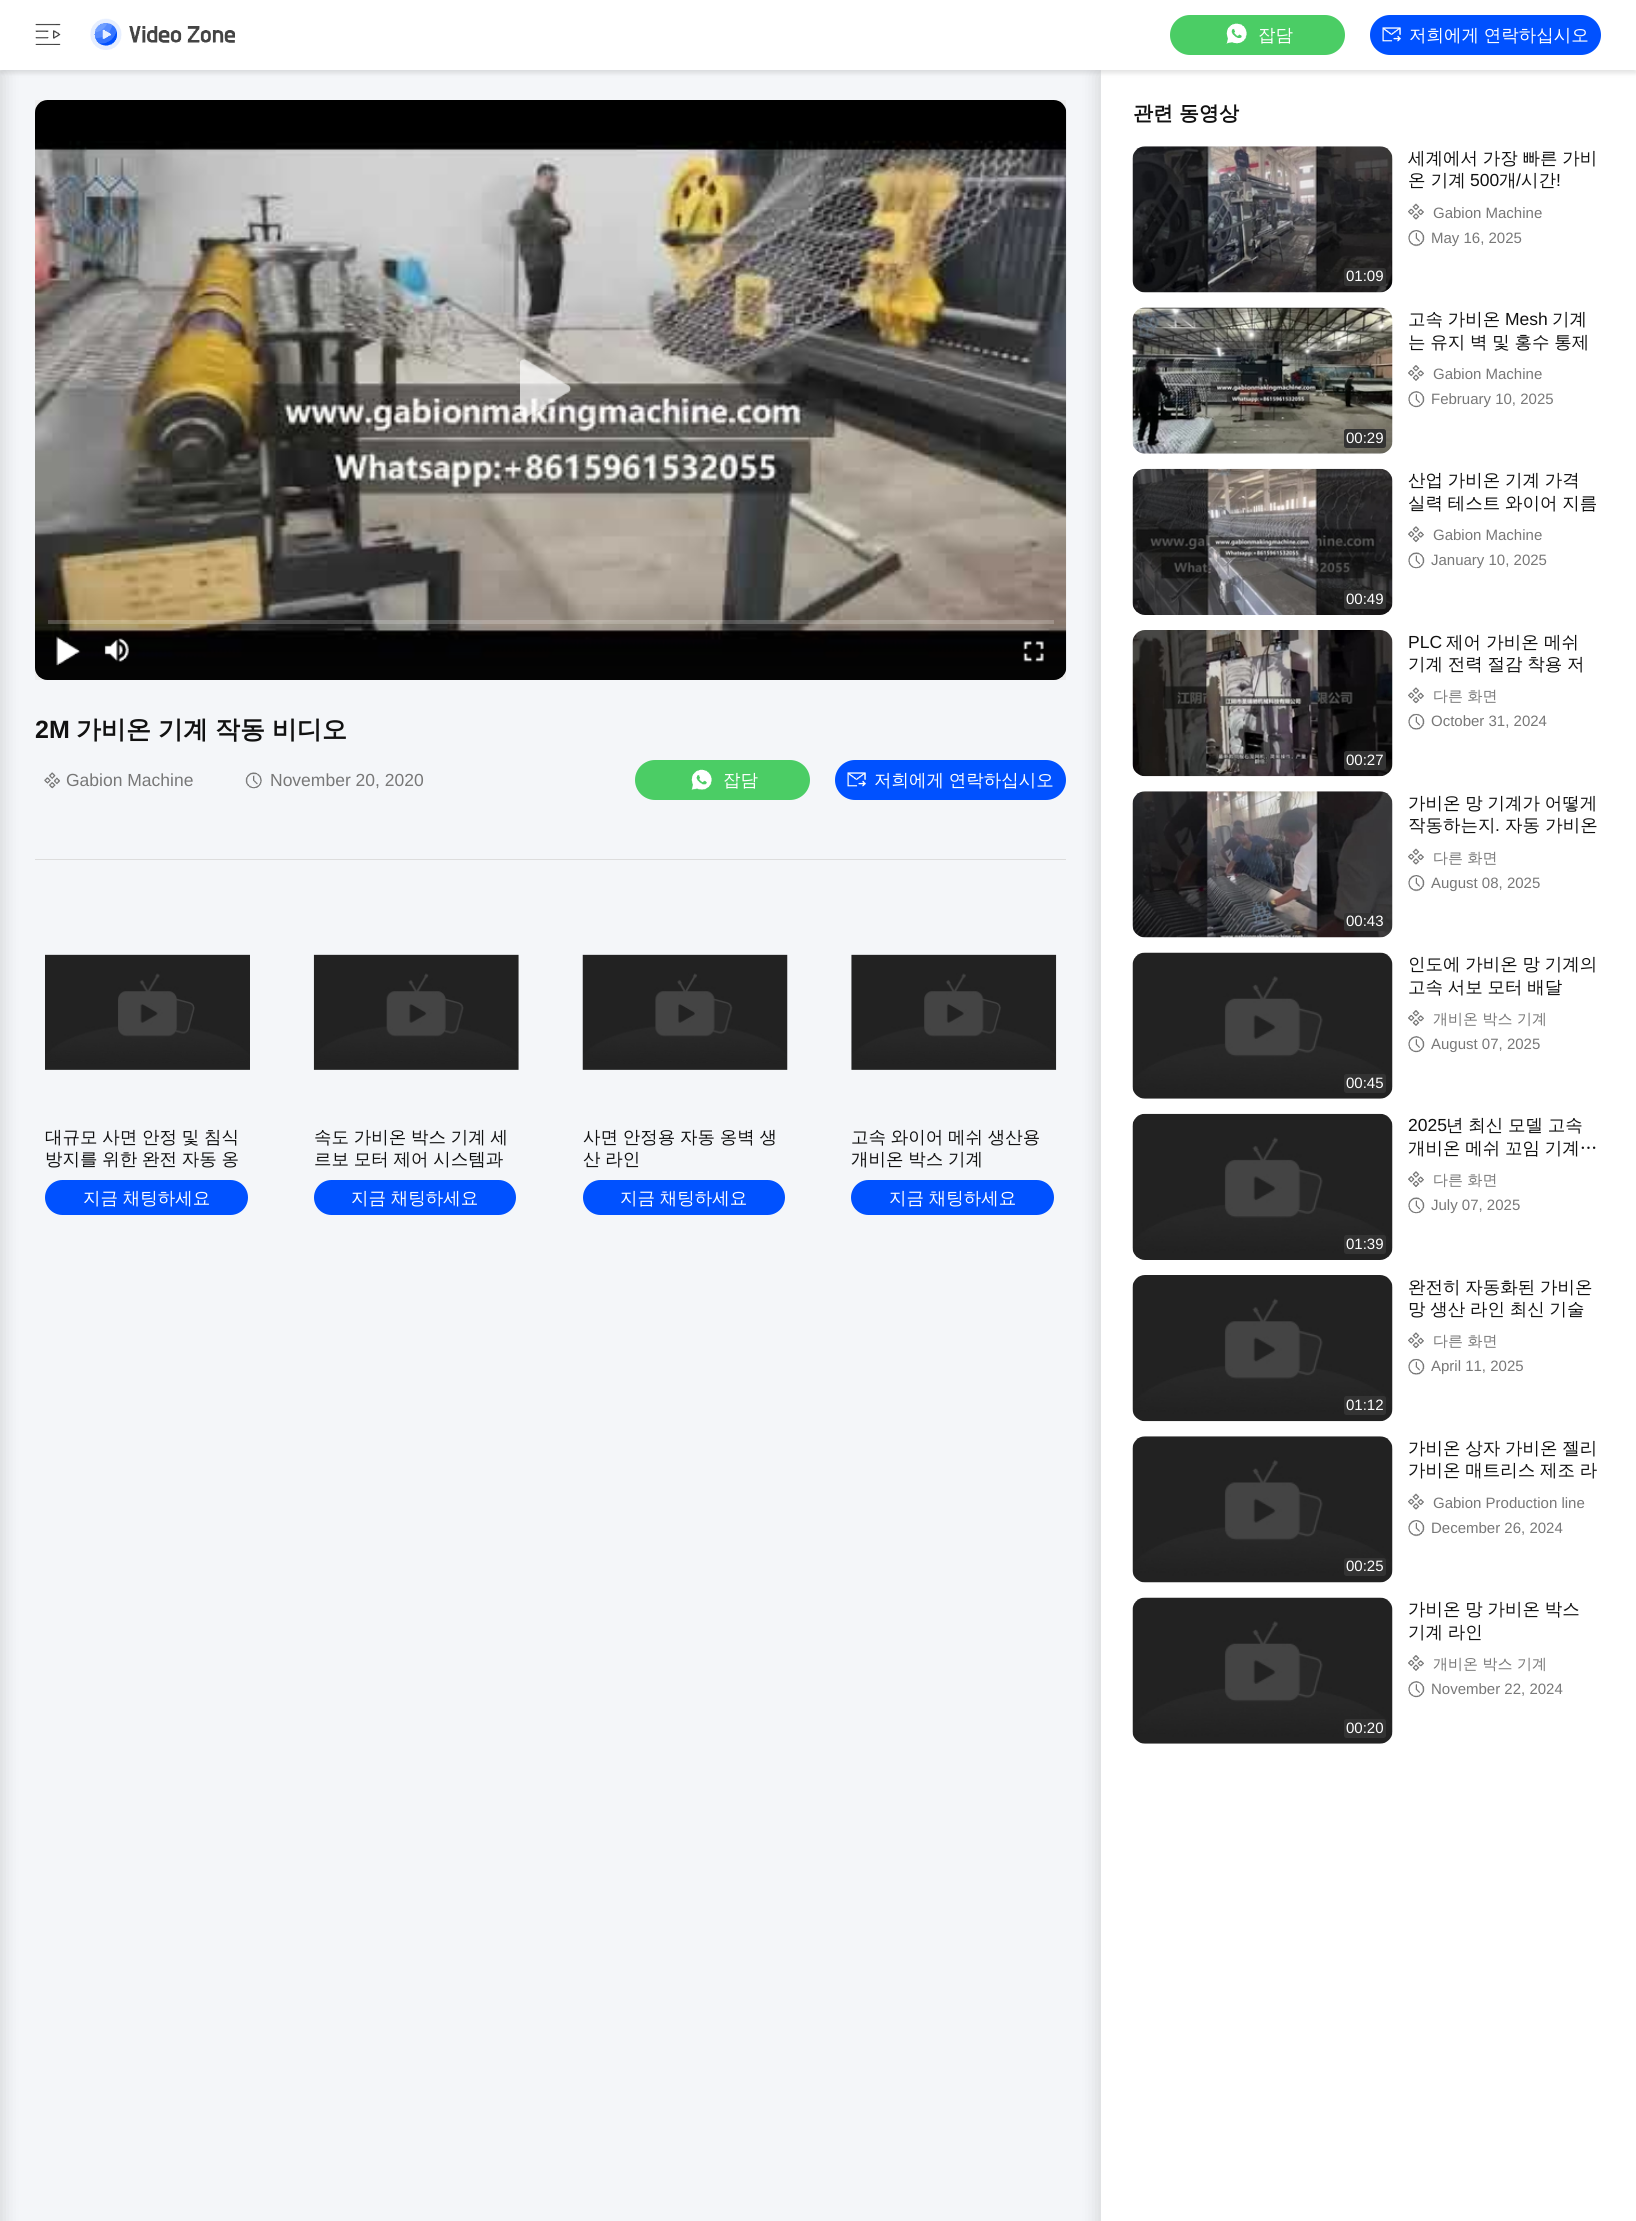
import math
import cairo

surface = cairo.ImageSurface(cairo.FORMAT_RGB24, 1636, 2221)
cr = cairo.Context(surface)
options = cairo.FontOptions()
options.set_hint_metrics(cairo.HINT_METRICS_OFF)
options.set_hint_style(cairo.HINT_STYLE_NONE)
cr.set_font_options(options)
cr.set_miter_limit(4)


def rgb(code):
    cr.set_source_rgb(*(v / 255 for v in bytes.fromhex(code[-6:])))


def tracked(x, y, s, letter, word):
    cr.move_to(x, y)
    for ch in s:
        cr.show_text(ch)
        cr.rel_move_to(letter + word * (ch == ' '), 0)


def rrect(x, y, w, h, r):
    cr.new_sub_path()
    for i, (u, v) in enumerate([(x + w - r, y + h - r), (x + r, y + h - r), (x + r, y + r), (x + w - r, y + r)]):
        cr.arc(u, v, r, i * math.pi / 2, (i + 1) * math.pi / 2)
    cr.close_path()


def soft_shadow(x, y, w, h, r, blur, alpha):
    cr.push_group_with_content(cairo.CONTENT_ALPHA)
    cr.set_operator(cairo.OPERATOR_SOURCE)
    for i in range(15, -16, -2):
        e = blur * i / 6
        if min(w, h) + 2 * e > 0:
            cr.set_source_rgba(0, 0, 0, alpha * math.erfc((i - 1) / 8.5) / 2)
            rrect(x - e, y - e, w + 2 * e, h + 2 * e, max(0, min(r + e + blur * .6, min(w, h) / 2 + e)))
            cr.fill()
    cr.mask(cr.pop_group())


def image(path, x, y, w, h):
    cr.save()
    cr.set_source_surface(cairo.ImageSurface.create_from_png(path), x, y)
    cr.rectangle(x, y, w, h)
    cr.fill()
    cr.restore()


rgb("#f4f6f9")
cr.paint()
rgb("#000000")
soft_shadow(1100, 74, 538, 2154, 0, 10, 0.16)
rgb("#ffffff")
cr.rectangle(1101, 70, 535, 2151)
cr.fill()
rgb("#000000")
soft_shadow(0, 3, 1636, 70, 0, 2.5, 0.12)
soft_shadow(-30, 74, 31, 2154, 0, 10, 0.16)
rgb("#ffffff")
cr.rectangle(0, 0, 1636, 70)
cr.fill()
image("img/1.png", 35, 23, 26, 22)
image("img/2.png", 90, 18, 145, 32)
rgb("#4bcd65")
rrect(1170, 15, 175, 40, 20)
cr.fill()
image("img/3.png", 1226, 23, 21, 21)
rgb("#0051ff")
rrect(1370, 15, 231, 40, 20)
cr.fill()
image("img/4.png", 1382, 27, 19, 15)
rgb("#dddddd")
cr.rectangle(35, 859, 1031, 1)
cr.fill()
rgb("#eeeeee")
cr.rectangle(35, 100, 1031, 580)
cr.fill()
image("img/5.png", 35, 100, 1032, 580)
image("img/6.png", 520, 358, 52, 61)
gradient = cairo.LinearGradient(551, 680, 551, 593)
gradient.add_color_stop_rgba(0.05, 0.055, 0.055, 0.051, 0.3)
gradient.add_color_stop_rgba(0.6, 0.055, 0.055, 0.055, 0.05)
gradient.add_color_stop_rgba(1, 0.055, 0.055, 0.055, 0)
cr.set_source(gradient)
cr.new_path()
cr.move_to(35, 593)
cr.line_to(1066, 593)
cr.line_to(1066, 667)
cr.curve_to(1066, 674, 1060, 680, 1053, 680)
cr.line_to(48, 680)
cr.curve_to(41, 680, 35, 674, 35, 667)
cr.close_path()
cr.fill()
cr.set_source_rgba(1, 1, 1, 0.2)
cr.rectangle(48, 620, 1006, 4)
cr.fill()
image("img/7.png", 56, 636, 25, 30)
image("img/8.png", 104, 638, 25, 24)
image("img/9.png", 1023, 641, 21, 21)
image("img/10.png", 44, 772, 16, 17)
image("img/11.png", 245, 772, 17, 17)
rgb("#4bcd65")
rrect(635, 760, 175, 40, 20)
cr.fill()
image("img/12.png", 691, 769, 21, 21)
rgb("#0051ff")
rrect(835, 760, 231, 40, 20)
cr.fill()
image("img/4.png", 847, 772, 19, 15)
image("img/13.png", 45, 954, 205, 116)
rrect(45, 1180, 203, 35, 17.5)
cr.fill()
image("img/14.png", 313, 954, 206, 116)
rrect(314, 1180, 202, 35, 17.5)
cr.fill()
image("img/15.png", 582, 954, 206, 116)
rrect(583, 1180, 202, 35, 17.5)
cr.fill()
image("img/16.png", 851, 954, 206, 116)
rrect(851, 1180, 203, 35, 17.5)
cr.fill()
image("img/17.png", 1408, 203, 16, 17)
image("img/18.png", 1408, 230, 17, 17)
image("img/19.png", 1132, 146, 261, 147)
rgb("#333333")
rrect(1344, 268, 42, 18, 2.5)
cr.fill()
image("img/20.png", 1408, 365, 16, 16)
image("img/21.png", 1408, 391, 17, 17)
image("img/22.png", 1132, 307, 261, 147)
rrect(1344, 429, 42, 19, 2.5)
cr.fill()
image("img/23.png", 1408, 526, 16, 17)
image("img/24.png", 1408, 552, 17, 17)
image("img/25.png", 1132, 468, 261, 147)
rrect(1344, 590, 42, 19, 2.5)
cr.fill()
image("img/26.png", 1408, 687, 16, 17)
image("img/27.png", 1408, 713, 17, 17)
image("img/28.png", 1132, 630, 261, 147)
rrect(1344, 751, 42, 19, 2.5)
cr.fill()
image("img/17.png", 1408, 848, 16, 17)
image("img/18.png", 1408, 875, 17, 17)
image("img/29.png", 1132, 791, 261, 147)
rrect(1344, 913, 42, 18, 2.5)
cr.fill()
image("img/20.png", 1408, 1010, 16, 16)
image("img/21.png", 1408, 1036, 17, 17)
image("img/30.png", 1132, 952, 261, 147)
rrect(1344, 1074, 42, 19, 2.5)
cr.fill()
image("img/31.png", 1408, 1171, 16, 17)
image("img/24.png", 1408, 1197, 17, 17)
image("img/32.png", 1132, 1113, 261, 147)
rrect(1344, 1235, 42, 19, 2.5)
cr.fill()
image("img/26.png", 1408, 1332, 16, 17)
image("img/27.png", 1408, 1358, 17, 17)
image("img/33.png", 1132, 1275, 261, 147)
rrect(1344, 1396, 42, 19, 2.5)
cr.fill()
image("img/17.png", 1408, 1493, 16, 17)
image("img/18.png", 1408, 1520, 17, 17)
image("img/34.png", 1132, 1436, 261, 147)
rrect(1344, 1558, 42, 18, 2.5)
cr.fill()
image("img/20.png", 1408, 1655, 16, 16)
image("img/21.png", 1408, 1681, 17, 17)
image("img/30.png", 1132, 1597, 261, 147)
rrect(1344, 1719, 42, 19, 2.5)
cr.fill()
cr.select_font_face("WenQuanYi Zen Hei Medium")
cr.set_font_size(17.5)
rgb("#ffffff")
cr.move_to(1258, 41)
cr.show_text("잡담")
tracked(1409, 41, "저희에게 연락하십시오", 0, -0.5)
cr.select_font_face("Liberation Sans", cairo.FONT_SLANT_NORMAL, cairo.FONT_WEIGHT_BOLD)
cr.set_font_size(25)
rgb("#111111")
cr.move_to(35, 738)
cr.show_text("2M")
cr.select_font_face("WenQuanYi Zen Hei", cairo.FONT_SLANT_NORMAL, cairo.FONT_WEIGHT_BOLD)
tracked(76, 738, "가비온 기계 작동 비디오", 0, -0.5)
cr.select_font_face("Liberation Sans")
cr.set_font_size(17.5)
rgb("#777777")
cr.move_to(66, 786)
cr.show_text("Gabion Machine")
cr.move_to(270, 786)
cr.show_text("November 20, 2020")
cr.select_font_face("WenQuanYi Zen Hei Medium")
rgb("#ffffff")
cr.move_to(723, 786)
cr.show_text("잡담")
tracked(874, 786, "저희에게 연락하십시오", 0, -0.5)
rgb("#111111")
tracked(45, 1143, "대규모 사면 안정 및 침식", 0, -0.5)
tracked(45, 1165, "방지를 위한 완전 자동 옹", 0, -0.5)
rgb("#ffffff")
tracked(83, 1204, "지금 채팅하세요", 0, -0.5)
rgb("#111111")
tracked(314, 1143, "속도 가비온 박스 기계 세", 0, -0.5)
tracked(314, 1165, "르보 모터 제어 시스템과", 0, -0.5)
rgb("#ffffff")
tracked(351, 1204, "지금 채팅하세요", 0, -0.5)
rgb("#111111")
tracked(583, 1143, "사면 안정용 자동 옹벽 생", 0, -0.5)
tracked(583, 1165, "산 라인", 0, -0.5)
rgb("#ffffff")
tracked(620, 1204, "지금 채팅하세요", 0, -0.5)
rgb("#111111")
tracked(851, 1143, "고속 와이어 메쉬 생산용", 0, -0.5)
tracked(851, 1165, "개비온 박스 기계", 0, -0.5)
rgb("#ffffff")
tracked(889, 1204, "지금 채팅하세요", 0, -0.5)
cr.select_font_face("WenQuanYi Zen Hei", cairo.FONT_SLANT_NORMAL, cairo.FONT_WEIGHT_BOLD)
cr.set_font_size(20)
rgb("#111111")
cr.move_to(1133, 120)
cr.show_text("관련 동영상")
cr.select_font_face("WenQuanYi Zen Hei Medium")
cr.set_font_size(17.5)
tracked(1408, 164, "세계에서 가장 빠른 가비", 0, -0.5)
cr.move_to(1408, 186)
cr.show_text("온 기계")
cr.select_font_face("Liberation Sans")
cr.move_to(1470, 186)
cr.show_text("500")
cr.select_font_face("WenQuanYi Zen Hei Medium")
cr.move_to(1499, 186)
cr.show_text("개")
cr.select_font_face("Liberation Sans")
cr.move_to(1516, 186)
cr.show_text("/")
cr.select_font_face("WenQuanYi Zen Hei Medium")
cr.move_to(1521, 186)
cr.show_text("시간")
cr.select_font_face("Liberation Sans")
cr.move_to(1556, 186)
cr.show_text("!")
cr.set_font_size(15)
rgb("#777777")
cr.move_to(1433, 218)
cr.show_text("Gabion Machine")
cr.move_to(1431, 243)
cr.show_text("May 16, 2025")
rgb("#ffffff")
cr.move_to(1346, 281)
cr.show_text("01:09")
cr.select_font_face("WenQuanYi Zen Hei Medium")
cr.set_font_size(17.5)
rgb("#111111")
tracked(1408, 325, "고속 가비온", 0, -0.5)
cr.select_font_face("Liberation Sans")
cr.move_to(1505, 325)
cr.show_text("Mesh")
cr.select_font_face("WenQuanYi Zen Hei Medium")
cr.move_to(1552, 325)
cr.show_text("기계")
tracked(1408, 348, "는 유지 벽 및 홍수 통제", 0, -0.5)
cr.select_font_face("Liberation Sans")
cr.set_font_size(15)
rgb("#777777")
cr.move_to(1433, 379)
cr.show_text("Gabion Machine")
cr.move_to(1431, 404)
cr.show_text("February 10, 2025")
rgb("#ffffff")
cr.move_to(1346, 443)
cr.show_text("00:29")
cr.select_font_face("WenQuanYi Zen Hei Medium")
cr.set_font_size(17.5)
rgb("#111111")
tracked(1408, 486, "산업 가비온 기계 가격", 0, -0.5)
tracked(1408, 509, "실력 테스트 와이어 지름", 0, -0.5)
cr.select_font_face("Liberation Sans")
cr.set_font_size(15)
rgb("#777777")
cr.move_to(1433, 540)
cr.show_text("Gabion Machine")
cr.move_to(1431, 565)
cr.show_text("January 10, 2025")
rgb("#ffffff")
cr.move_to(1346, 604)
cr.show_text("00:49")
cr.set_font_size(17.5)
rgb("#111111")
cr.move_to(1408, 648)
cr.show_text("PLC")
cr.select_font_face("WenQuanYi Zen Hei Medium")
cr.move_to(1446, 648)
cr.show_text("제어 가비온 메쉬")
tracked(1408, 670, "기계 전력 절감 착용 저", 0, -0.5)
cr.set_font_size(15)
rgb("#777777")
cr.move_to(1433, 701)
cr.show_text("다른 화면")
cr.select_font_face("Liberation Sans")
cr.move_to(1431, 726)
cr.show_text("October 31, 2024")
rgb("#ffffff")
cr.move_to(1346, 765)
cr.show_text("00:27")
cr.select_font_face("WenQuanYi Zen Hei Medium")
cr.set_font_size(17.5)
rgb("#111111")
tracked(1408, 809, "가비온 망 기계가 어떻게", 0, -0.5)
cr.move_to(1408, 831)
cr.show_text("작동하는지")
cr.select_font_face("Liberation Sans")
cr.move_to(1495, 831)
cr.show_text(".")
cr.select_font_face("WenQuanYi Zen Hei Medium")
cr.move_to(1505, 831)
cr.show_text("자동 가비온")
cr.set_font_size(15)
rgb("#777777")
cr.move_to(1433, 863)
cr.show_text("다른 화면")
cr.select_font_face("Liberation Sans")
cr.move_to(1431, 888)
cr.show_text("August 08, 2025")
rgb("#ffffff")
cr.move_to(1346, 926)
cr.show_text("00:43")
cr.select_font_face("WenQuanYi Zen Hei Medium")
cr.set_font_size(17.5)
rgb("#111111")
tracked(1408, 970, "인도에 가비온 망 기계의", 0, -0.5)
tracked(1408, 993, "고속 서보 모터 배달", 0, -0.5)
cr.set_font_size(15)
rgb("#777777")
cr.move_to(1433, 1024)
cr.show_text("개비온 박스 기계")
cr.select_font_face("Liberation Sans")
cr.move_to(1431, 1049)
cr.show_text("August 07, 2025")
rgb("#ffffff")
cr.move_to(1346, 1088)
cr.show_text("00:45")
cr.set_font_size(17.5)
rgb("#111111")
cr.move_to(1408, 1131)
cr.show_text("2025")
cr.select_font_face("WenQuanYi Zen Hei Medium")
tracked(1446, 1131, "년 최신 모델 고속", 0, -0.5)
tracked(1408, 1154, "개비온 메쉬 꼬임 기계…", 0, -0.5)
cr.set_font_size(15)
rgb("#777777")
cr.move_to(1433, 1185)
cr.show_text("다른 화면")
cr.select_font_face("Liberation Sans")
cr.move_to(1431, 1210)
cr.show_text("July 07, 2025")
rgb("#ffffff")
cr.move_to(1346, 1249)
cr.show_text("01:39")
cr.select_font_face("WenQuanYi Zen Hei Medium")
cr.set_font_size(17.5)
rgb("#111111")
tracked(1408, 1293, "완전히 자동화된 가비온", 0, -0.5)
tracked(1408, 1315, "망 생산 라인 최신 기술", 0, -0.5)
cr.set_font_size(15)
rgb("#777777")
cr.move_to(1433, 1346)
cr.show_text("다른 화면")
cr.select_font_face("Liberation Sans")
cr.move_to(1431, 1371)
cr.show_text("April 11, 2025")
rgb("#ffffff")
cr.move_to(1346, 1410)
cr.show_text("01:12")
cr.select_font_face("WenQuanYi Zen Hei Medium")
cr.set_font_size(17.5)
rgb("#111111")
tracked(1408, 1454, "가비온 상자 가비온 젤리", 0, -0.5)
tracked(1408, 1476, "가비온 매트리스 제조 라", 0, -0.5)
cr.select_font_face("Liberation Sans")
cr.set_font_size(15)
rgb("#777777")
cr.move_to(1433, 1508)
cr.show_text("Gabion Production line")
cr.move_to(1431, 1533)
cr.show_text("December 26, 2024")
rgb("#ffffff")
cr.move_to(1346, 1571)
cr.show_text("00:25")
cr.select_font_face("WenQuanYi Zen Hei Medium")
cr.set_font_size(17.5)
rgb("#111111")
tracked(1408, 1615, "가비온 망 가비온 박스", 0, -0.5)
tracked(1408, 1638, "기계 라인", 0, -0.5)
cr.set_font_size(15)
rgb("#777777")
cr.move_to(1433, 1669)
cr.show_text("개비온 박스 기계")
cr.select_font_face("Liberation Sans")
cr.move_to(1431, 1694)
cr.show_text("November 22, 2024")
rgb("#ffffff")
cr.move_to(1346, 1733)
cr.show_text("00:20")
surface.write_to_png("page.png")
